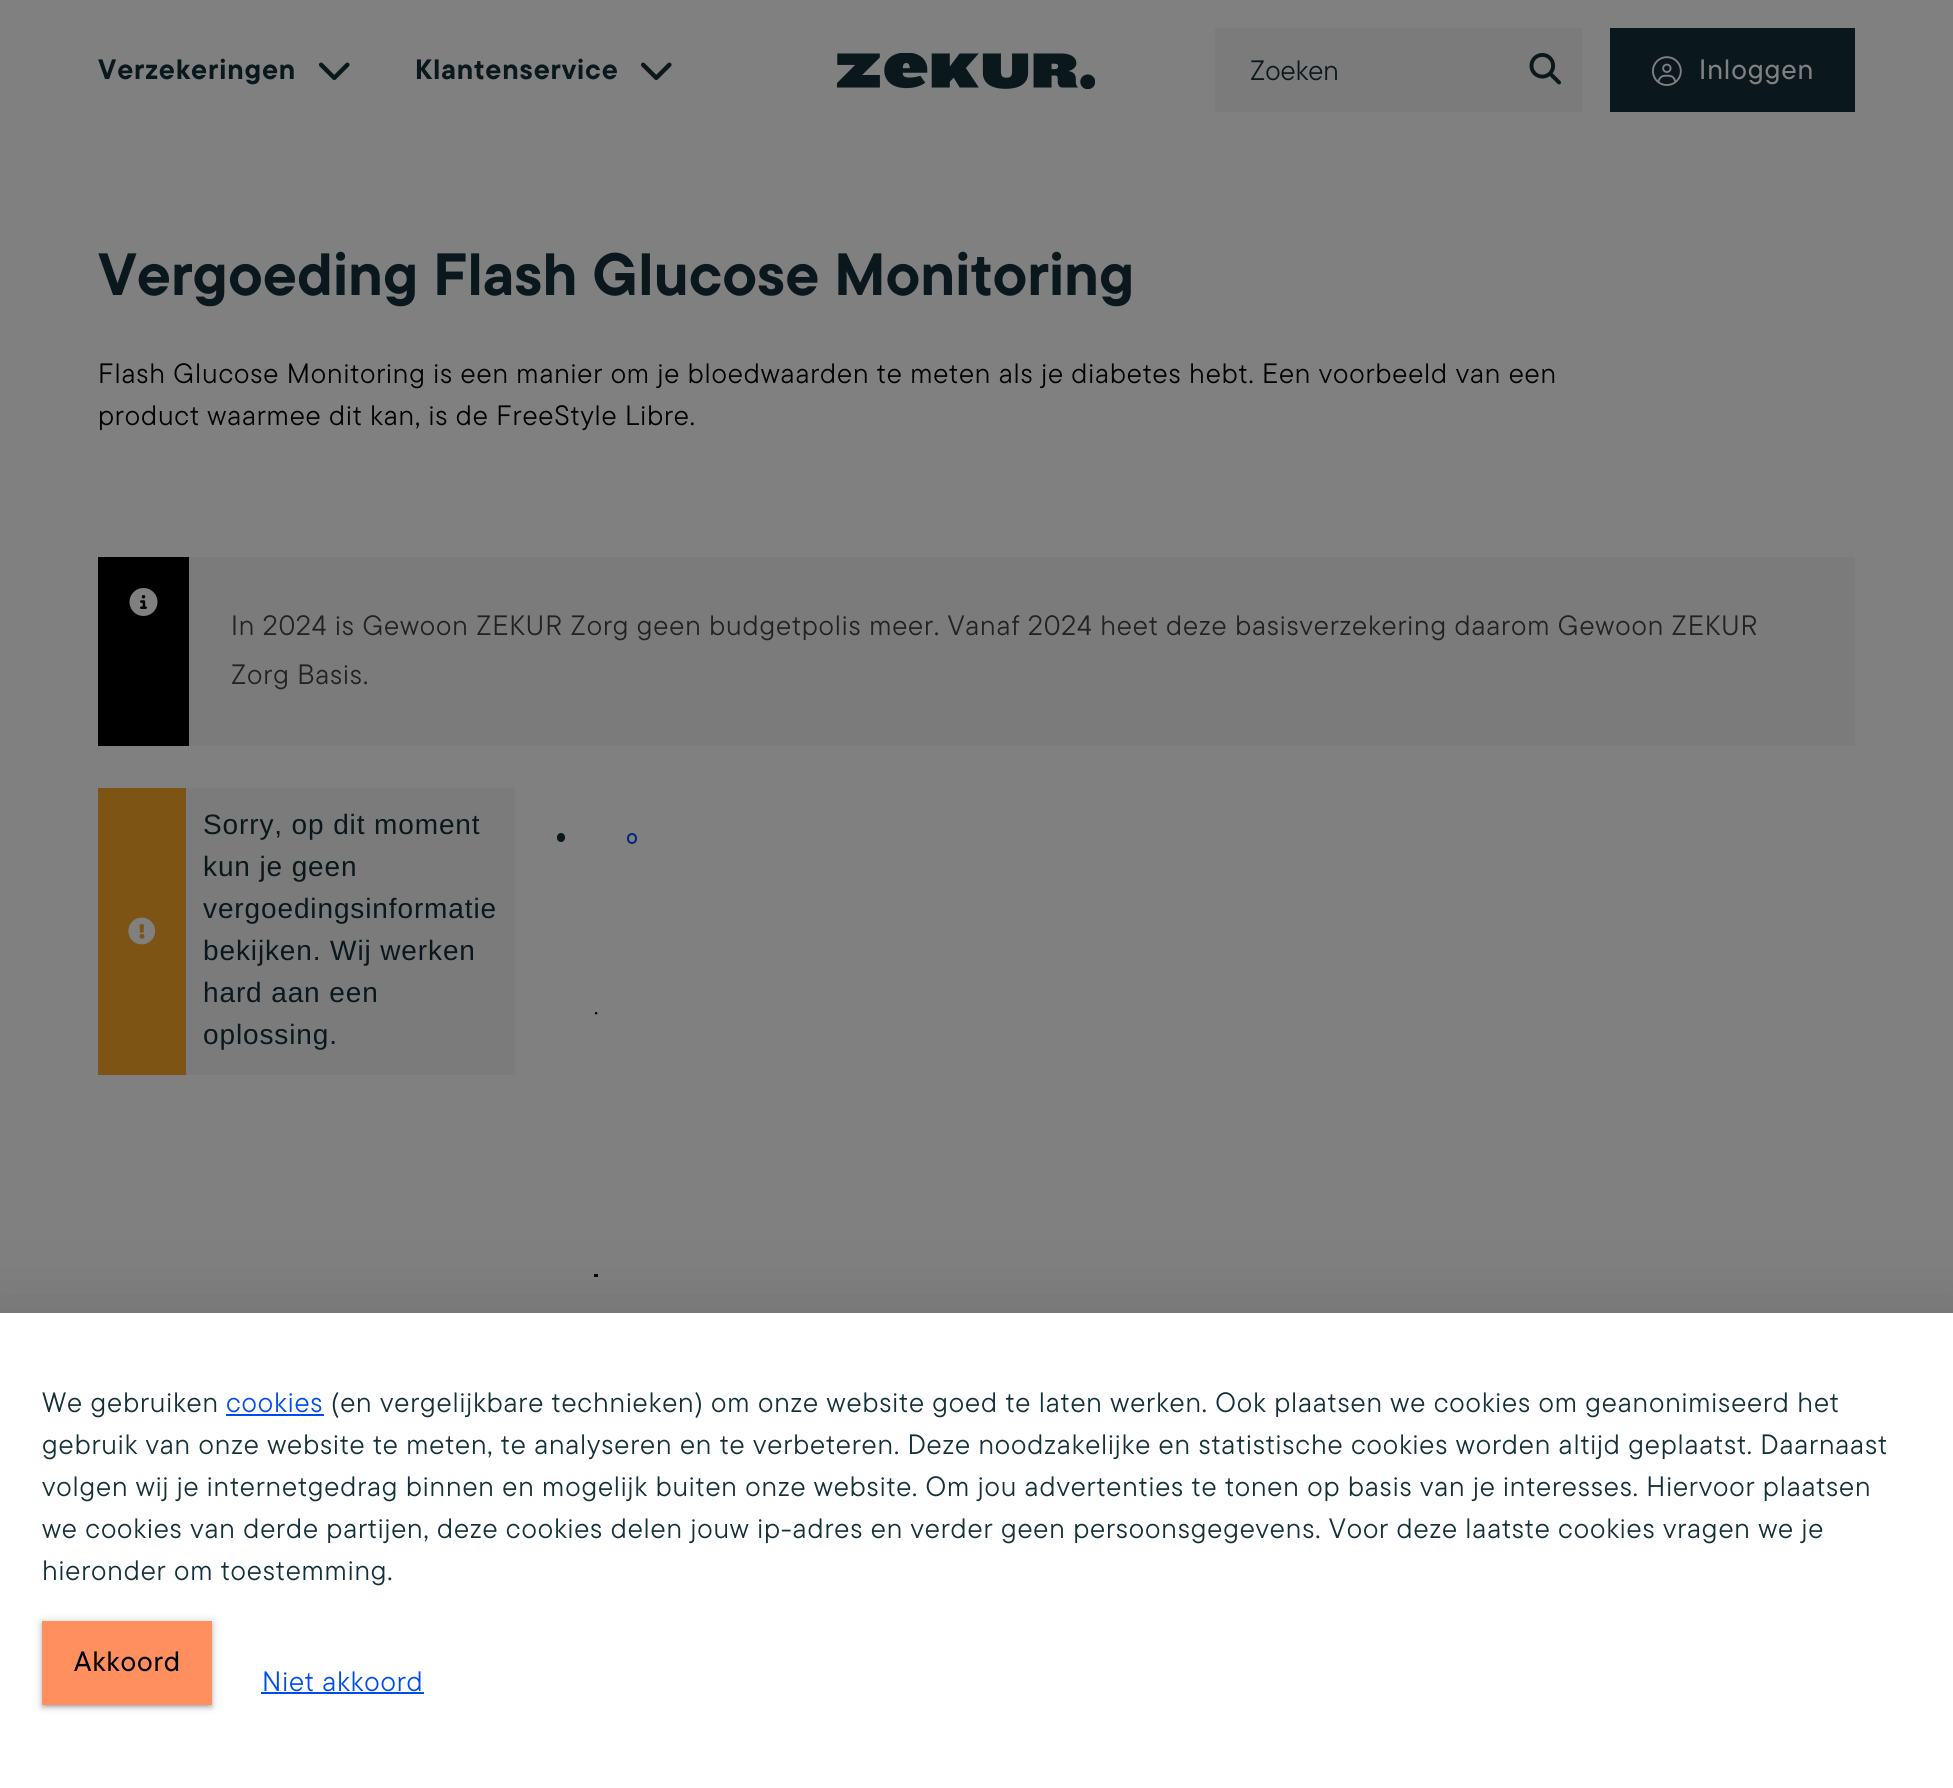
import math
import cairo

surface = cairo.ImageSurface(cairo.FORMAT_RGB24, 1953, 1788)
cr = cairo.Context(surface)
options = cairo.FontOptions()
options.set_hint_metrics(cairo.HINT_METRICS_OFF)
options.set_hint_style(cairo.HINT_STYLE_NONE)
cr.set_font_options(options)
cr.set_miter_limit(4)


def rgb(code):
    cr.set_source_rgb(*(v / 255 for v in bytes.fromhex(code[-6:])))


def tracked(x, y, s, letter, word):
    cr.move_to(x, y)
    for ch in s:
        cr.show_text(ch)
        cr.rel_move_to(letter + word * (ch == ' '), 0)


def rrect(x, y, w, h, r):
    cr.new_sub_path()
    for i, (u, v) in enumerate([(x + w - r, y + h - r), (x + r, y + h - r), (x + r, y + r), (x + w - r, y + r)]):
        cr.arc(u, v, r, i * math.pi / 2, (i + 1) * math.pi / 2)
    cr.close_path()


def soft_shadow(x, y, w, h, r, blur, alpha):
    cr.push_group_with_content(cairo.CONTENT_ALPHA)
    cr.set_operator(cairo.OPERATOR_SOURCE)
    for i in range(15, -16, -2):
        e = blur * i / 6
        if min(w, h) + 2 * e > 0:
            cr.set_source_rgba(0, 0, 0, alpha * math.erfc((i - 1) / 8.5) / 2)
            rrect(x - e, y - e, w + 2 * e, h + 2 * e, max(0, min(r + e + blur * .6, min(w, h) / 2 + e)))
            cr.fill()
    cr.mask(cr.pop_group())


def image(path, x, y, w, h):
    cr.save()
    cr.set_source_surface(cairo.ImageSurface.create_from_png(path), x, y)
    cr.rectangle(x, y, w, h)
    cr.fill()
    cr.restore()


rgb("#808080")
cr.paint()
image("img/1.png", 319, 62, 31, 18)
image("img/1.png", 641, 62, 31, 18)
image("img/2.png", 837, 53, 258, 36)
rgb("#7b7b7b")
cr.rectangle(1215, 28, 367, 84)
cr.fill()
image("img/3.png", 1529, 52, 32, 33)
rgb("#0a181d")
cr.rectangle(1610, 28, 245, 84)
cr.fill()
image("img/4.png", 1652, 56, 30, 30)
rgb("#000000")
cr.rectangle(98, 557, 91, 189)
cr.fill()
image("img/5.png", 129, 588, 29, 28)
for x, y, w, h, color in [
    (189, 557, 1666, 189, "#7b7b7b"),
    (186, 788, 329, 287, "#7b7b7b"),
    (98, 788, 88, 287, "#7d5413"),
]:
    rgb(color)
    cr.rectangle(x, y, w, h)
    cr.fill()
image("img/6.png", 128, 917, 28, 28)
rgb("#0a181d")
rrect(557, 833, 8, 9, 4)
cr.fill()
rrect(628, 834, 8, 9, 4)
rgb("#002778")
cr.stroke()
image("img/7.png", 594, 1011, 4, 4)
rgb("#000000")
cr.rectangle(594, 1274, 4, 3)
cr.fill()
rgb("#000000")
soft_shadow(-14, 1314, 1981, 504, 0, 40, 0.12)
rgb("#ffffff")
cr.rectangle(0, 1313, 1953, 475)
cr.fill()
rgb("#004def")
cr.rectangle(226, 1414, 98, 2)
cr.fill()
rgb("#000000")
soft_shadow(42, 1622, 170, 84, 0, 4.5, 0.2)
soft_shadow(46, 1629, 162, 77, 0, 1, 0.12)
soft_shadow(42, 1624, 170, 84, 0, 2, 0.14)
rgb("#ff8f5f")
cr.rectangle(42, 1621, 170, 84)
cr.fill()
rgb("#004def")
cr.rectangle(261, 1692, 163, 2)
cr.fill()
cr.select_font_face("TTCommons", cairo.FONT_SLANT_NORMAL, cairo.FONT_WEIGHT_BOLD)
cr.set_font_size(28)
rgb("#0a181d")
tracked(98, 79, "Verzekeringen", 0.88, 0)
tracked(415, 79, "Klantenservice", 0.88, 0)
cr.select_font_face("TTCommons")
cr.move_to(1250, 80)
cr.show_text("Zoeken")
cr.select_font_face("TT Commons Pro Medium")
rgb("#808080")
tracked(1699, 79, "Inloggen", 0.88, 0)
cr.select_font_face("TTCommons", cairo.FONT_SLANT_NORMAL, cairo.FONT_WEIGHT_BOLD)
cr.set_font_size(59.5)
rgb("#0a181d")
cr.move_to(98, 295)
cr.show_text("Vergoeding Flash Glucose Monitoring")
cr.select_font_face("TTCommons")
cr.set_font_size(28)
rgb("#000000")
tracked(98, 383, "Flash Glucose Monitoring is een manier om je bloedwaarden te meten als je diabetes hebt. Een voorbeeld van een", 0.88, 0)
tracked(98, 425, "product waarmee dit kan, is de FreeStyle Libre.", 0.88, 0)
rgb("#222222")
tracked(231, 635, "In 2024 is Gewoon ZEKUR Zorg geen budgetpolis meer. Vanaf 2024 heet deze basisverzekering daarom Gewoon ZEKUR", 0.88, 0)
tracked(231, 684, "Zorg Basis.", 0.88, 0)
cr.select_font_face("Liberation Sans")
rgb("#0a181d")
for x, y, s in [
    (203, 834, "Sorry, op dit moment"),
    (203, 876, "kun je geen"),
    (203, 918, "vergoedingsinformatie"),
    (203, 960, "bekijken. Wij werken"),
    (203, 1002, "hard aan een"),
    (203, 1044, "oplossing."),
]:
    tracked(x, y, s, 0.88, 0)
cr.select_font_face("TTCommons")
rgb("#143039")
tracked(42, 1412, "We gebruiken", 0.88, 0)
rgb("#004def")
tracked(226, 1412, "cookies", 0.88, 0)
rgb("#143039")
for x, y, s in [
    (331, 1412, "(en vergelijkbare technieken) om onze website goed te laten werken. Ook plaatsen we cookies om geanonimiseerd het"),
    (42, 1454, "gebruik van onze website te meten, te analyseren en te verbeteren. Deze noodzakelijke en statistische cookies worden altijd geplaatst. Daarnaast"),
    (42, 1496, "volgen wij je internetgedrag binnen en mogelijk buiten onze website. Om jou advertenties te tonen op basis van je interesses. Hiervoor plaatsen"),
    (42, 1538, "we cookies van derde partijen, deze cookies delen jouw ip-adres en verder geen persoonsgegevens. Voor deze laatste cookies vragen we je"),
    (42, 1580, "hieronder om toestemming."),
]:
    tracked(x, y, s, 0.88, 0)
cr.select_font_face("TT Commons Pro Medium")
rgb("#000000")
tracked(74, 1671, "Akkoord", 0.88, 0)
cr.select_font_face("TTCommons")
rgb("#004def")
tracked(262, 1691, "Niet akkoord", 0.88, 0)
surface.write_to_png("page.png")
